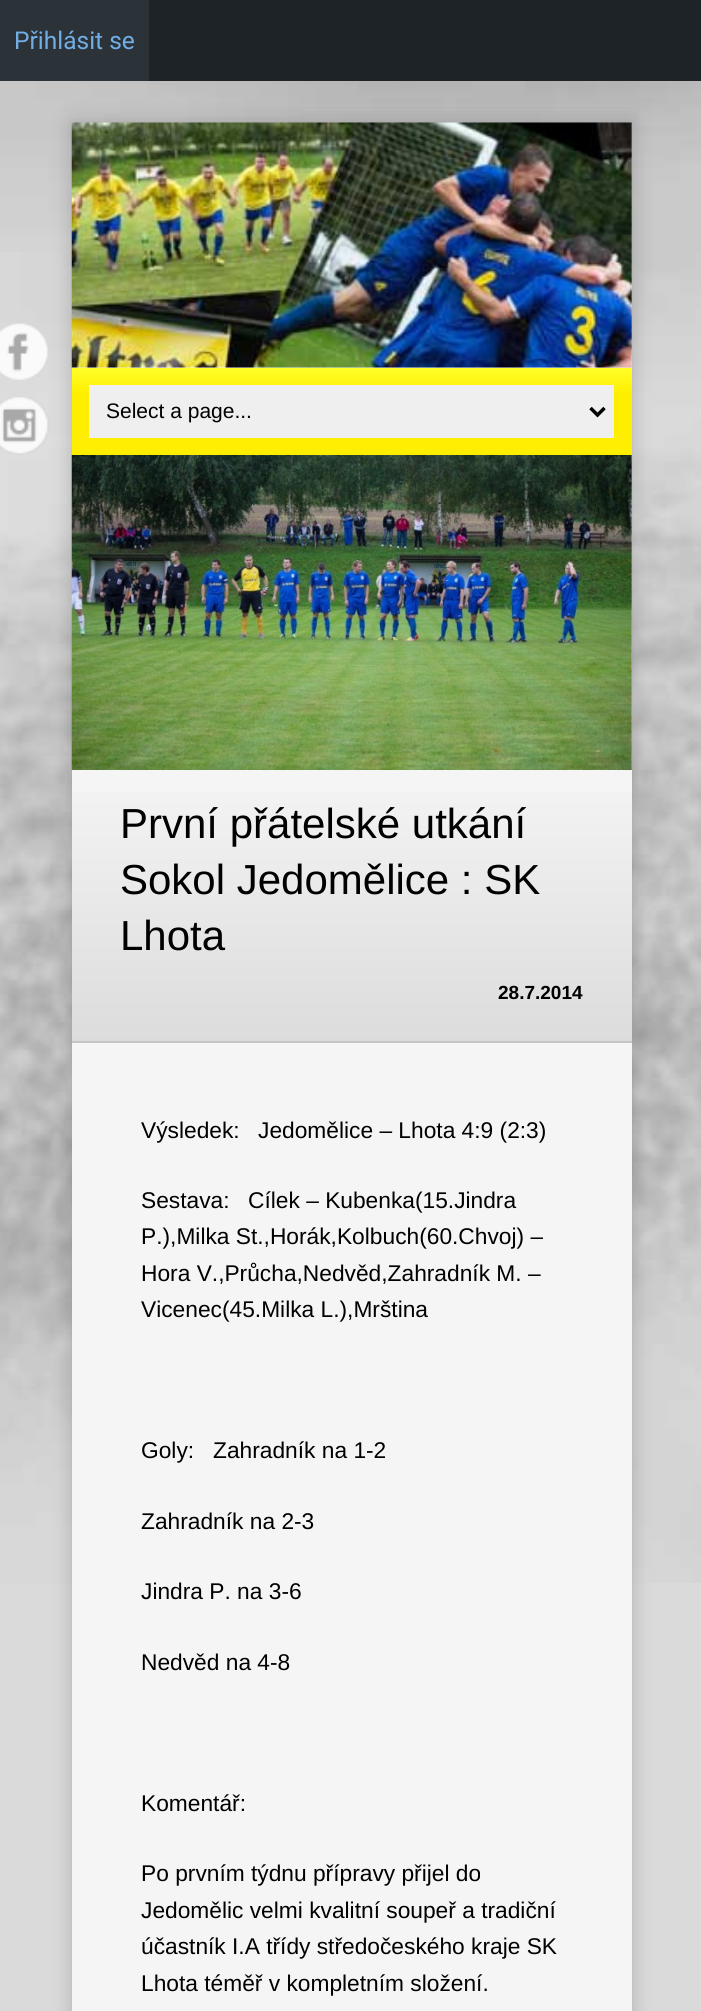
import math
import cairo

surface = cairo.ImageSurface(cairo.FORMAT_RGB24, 701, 2011)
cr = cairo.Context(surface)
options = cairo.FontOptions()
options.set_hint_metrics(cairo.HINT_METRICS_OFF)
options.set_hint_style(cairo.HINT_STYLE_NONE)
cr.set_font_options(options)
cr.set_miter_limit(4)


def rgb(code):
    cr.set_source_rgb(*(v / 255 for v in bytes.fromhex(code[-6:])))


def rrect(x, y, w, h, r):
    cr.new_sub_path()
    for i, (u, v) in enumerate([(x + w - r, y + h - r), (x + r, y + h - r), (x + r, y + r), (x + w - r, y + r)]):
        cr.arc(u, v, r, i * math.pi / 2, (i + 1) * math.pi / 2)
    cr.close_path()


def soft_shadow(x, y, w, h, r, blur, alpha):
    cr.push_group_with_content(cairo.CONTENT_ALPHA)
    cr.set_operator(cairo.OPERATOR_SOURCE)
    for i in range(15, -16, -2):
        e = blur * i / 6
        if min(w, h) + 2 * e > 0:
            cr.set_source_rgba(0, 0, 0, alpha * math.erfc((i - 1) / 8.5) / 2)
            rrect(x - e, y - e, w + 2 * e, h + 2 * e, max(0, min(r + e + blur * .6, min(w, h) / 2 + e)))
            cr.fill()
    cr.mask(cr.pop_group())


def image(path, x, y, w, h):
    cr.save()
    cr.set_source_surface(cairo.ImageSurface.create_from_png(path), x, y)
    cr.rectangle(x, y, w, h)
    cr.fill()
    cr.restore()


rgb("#dadada")
cr.paint()
image("img/1.png", 0, 81, 701, 1502)
rgb("#1d2327")
cr.rectangle(149, 0, 552, 81)
cr.fill()
rgb("#2c3338")
cr.rectangle(0, 0, 149, 81)
cr.fill()
rgb("#000000")
soft_shadow(72, 123, 560, 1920, 0, 10.5, 0.2)
image("img/2.png", 0, 323, 48, 57)
image("img/3.png", 0, 397, 49, 58)
rgb("#f5f5f5")
cr.rectangle(72, 455, 560, 1556)
cr.fill()
rgb("#f0f0f0")
cr.rectangle(72, 123, 560, 245)
cr.fill()
image("img/4.png", 71, 122, 561, 246)
gradient = cairo.LinearGradient(72, 368, 72, 455)
gradient.add_color_stop_rgba(0, 1, 1, 0.157, 1)
gradient.add_color_stop_rgba(0.3, 1, 0.933, 0, 1)
cr.set_source(gradient)
cr.rectangle(72, 368, 560, 87)
cr.fill()
rgb("#efefef")
cr.rectangle(89, 385, 525, 53)
cr.fill()
cr.new_path()
cr.move_to(590.5, 408)
cr.line_to(597.5, 415)
cr.line_to(604.5, 408)
rgb("#000000")
cr.set_line_width(3.5)
cr.stroke()
image("img/5.png", 71, 455, 561, 315)
gradient = cairo.LinearGradient(72, 775, 72, 1041)
gradient.add_color_stop_rgba(0, 0.957, 0.957, 0.957, 1)
gradient.add_color_stop_rgba(1, 0.863, 0.863, 0.863, 1)
cr.set_source(gradient)
cr.rectangle(72, 792, 560, 249)
cr.fill()
rgb("#c4c4c4")
cr.rectangle(72, 1041, 560, 2)
cr.fill()
cr.select_font_face("Roboto")
cr.set_font_size(24.5)
rgb("#72aee6")
cr.move_to(14, 49)
cr.show_text("Přihlásit se")
cr.select_font_face("Liberation Sans")
cr.set_font_size(21)
rgb("#000000")
cr.move_to(106, 418)
cr.show_text("Select a page...")
cr.set_font_size(42)
for x, y, s in [
    (120, 838, "První přátelské utkání"),
    (120, 894, "Sokol Jedomělice : SK"),
    (120, 950, "Lhota"),
]:
    cr.move_to(x, y)
    cr.show_text(s)
cr.select_font_face("Liberation Sans", cairo.FONT_SLANT_NORMAL, cairo.FONT_WEIGHT_BOLD)
cr.set_font_size(19)
cr.move_to(498, 999)
cr.show_text("28.7.2014")
cr.select_font_face("Liberation Sans")
cr.set_font_size(22.75)
for x, y, s in [
    (141, 1138, "Výsledek:"),
    (258, 1138, "Jedomělice – Lhota 4:9 (2:3)"),
    (141, 1208, "Sestava:"),
    (248, 1208, "Cílek – Kubenka(15.Jindra"),
    (141, 1244, "P.),Milka St.,Horák,Kolbuch(60.Chvoj) –"),
    (141, 1281, "Hora V.,Průcha,Nedvěd,Zahradník M. –"),
    (141, 1317, "Vicenec(45.Milka L.),Mrština"),
    (141, 1458, "Goly:"),
    (213, 1458, "Zahradník na 1-2"),
    (141, 1529, "Zahradník na 2-3"),
    (141, 1599, "Jindra P. na 3-6"),
    (141, 1670, "Nedvěd na 4-8"),
    (141, 1811, "Komentář:"),
    (141, 1881, "Po prvním týdnu přípravy přijel do"),
    (141, 1918, "Jedomělic velmi kvalitní soupeř a tradiční"),
    (141, 1954, "účastník I.A třídy středočeského kraje SK"),
    (141, 1991, "Lhota téměř v kompletním složení."),
]:
    cr.move_to(x, y)
    cr.show_text(s)
surface.write_to_png("page.png")
